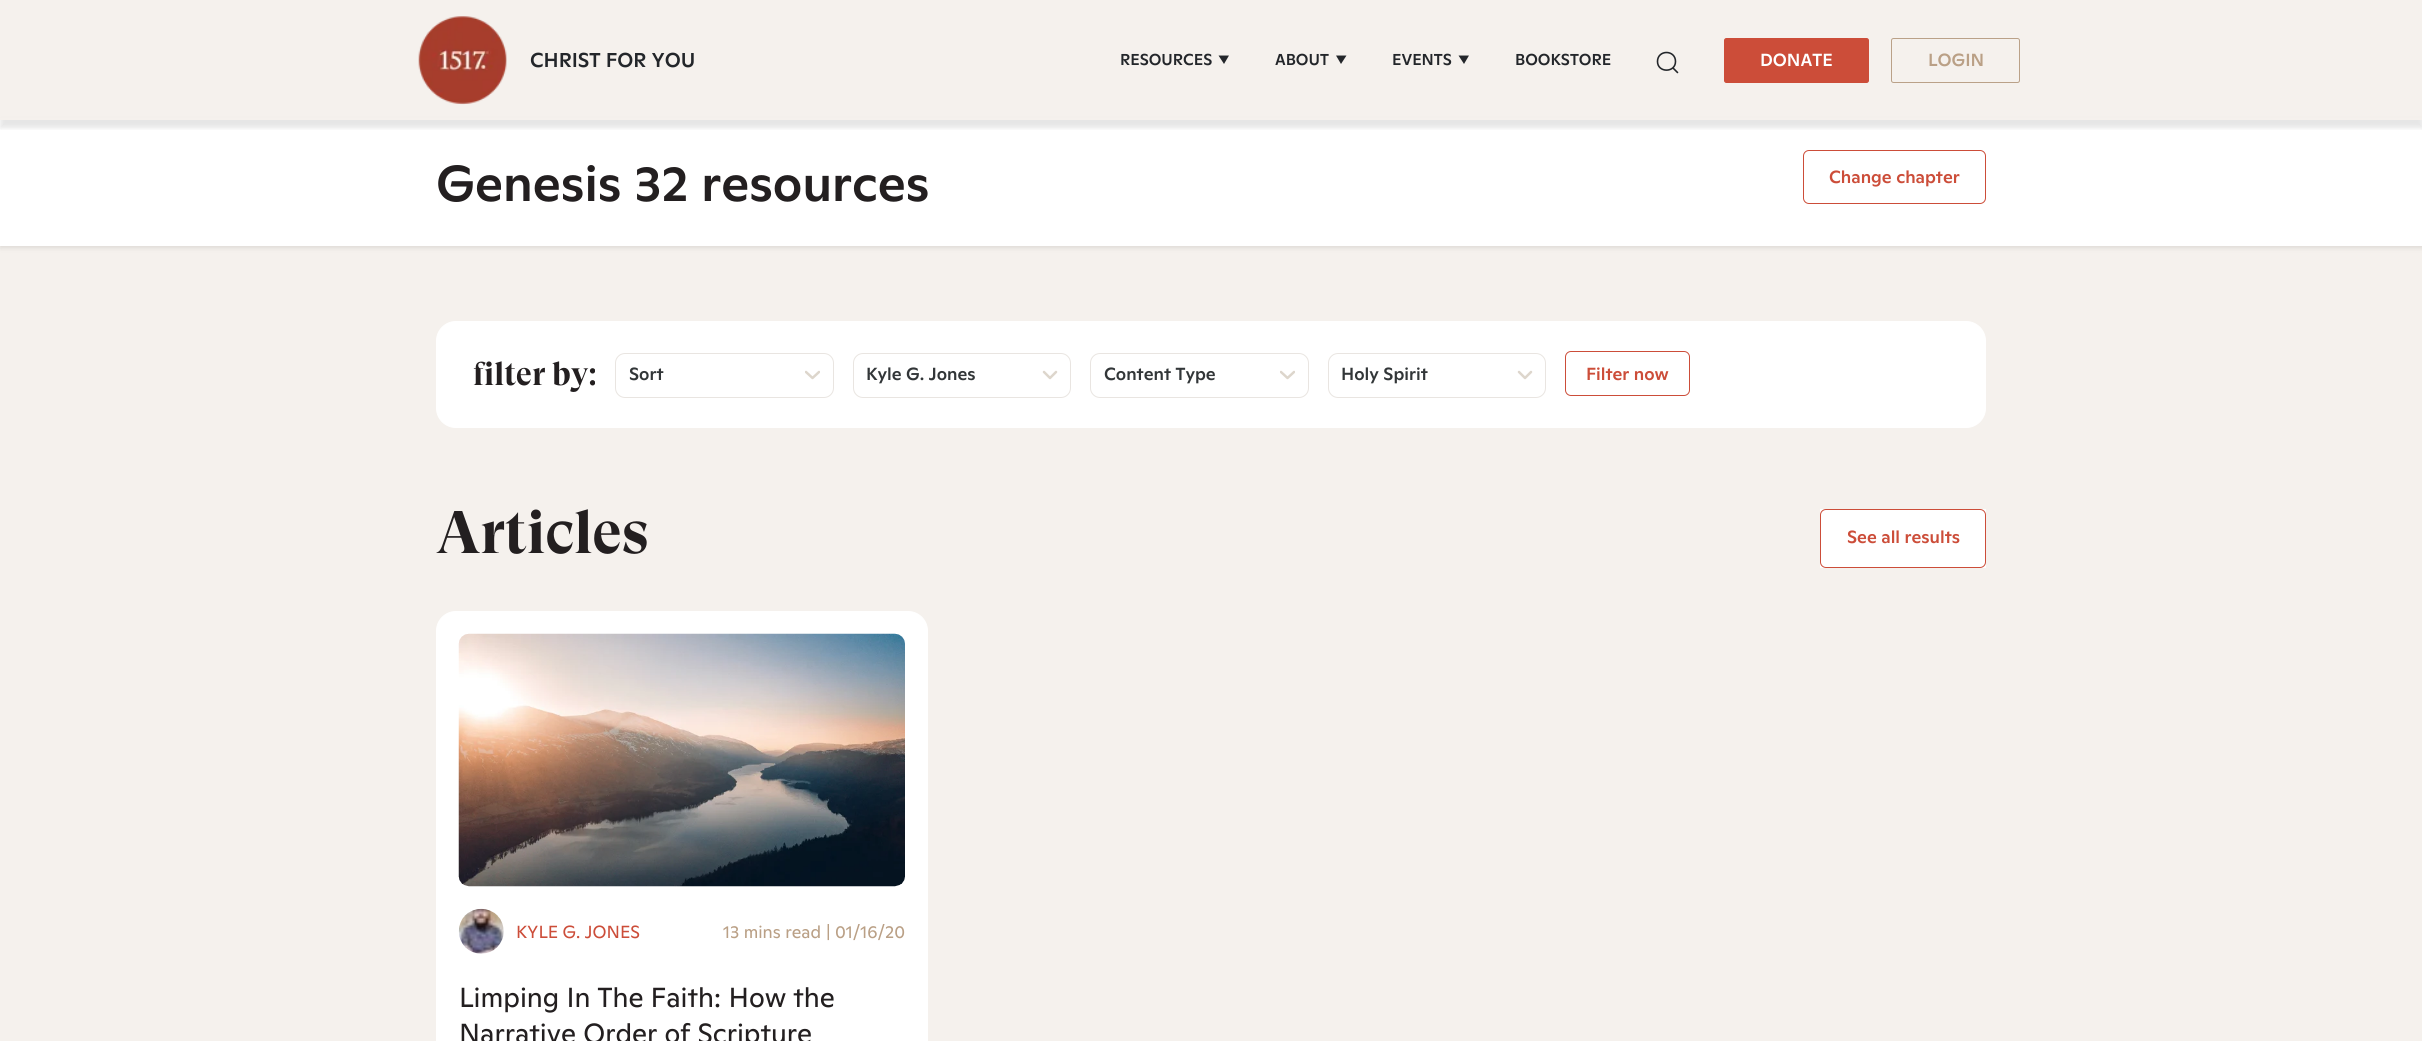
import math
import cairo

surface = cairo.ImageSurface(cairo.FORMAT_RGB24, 2422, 1041)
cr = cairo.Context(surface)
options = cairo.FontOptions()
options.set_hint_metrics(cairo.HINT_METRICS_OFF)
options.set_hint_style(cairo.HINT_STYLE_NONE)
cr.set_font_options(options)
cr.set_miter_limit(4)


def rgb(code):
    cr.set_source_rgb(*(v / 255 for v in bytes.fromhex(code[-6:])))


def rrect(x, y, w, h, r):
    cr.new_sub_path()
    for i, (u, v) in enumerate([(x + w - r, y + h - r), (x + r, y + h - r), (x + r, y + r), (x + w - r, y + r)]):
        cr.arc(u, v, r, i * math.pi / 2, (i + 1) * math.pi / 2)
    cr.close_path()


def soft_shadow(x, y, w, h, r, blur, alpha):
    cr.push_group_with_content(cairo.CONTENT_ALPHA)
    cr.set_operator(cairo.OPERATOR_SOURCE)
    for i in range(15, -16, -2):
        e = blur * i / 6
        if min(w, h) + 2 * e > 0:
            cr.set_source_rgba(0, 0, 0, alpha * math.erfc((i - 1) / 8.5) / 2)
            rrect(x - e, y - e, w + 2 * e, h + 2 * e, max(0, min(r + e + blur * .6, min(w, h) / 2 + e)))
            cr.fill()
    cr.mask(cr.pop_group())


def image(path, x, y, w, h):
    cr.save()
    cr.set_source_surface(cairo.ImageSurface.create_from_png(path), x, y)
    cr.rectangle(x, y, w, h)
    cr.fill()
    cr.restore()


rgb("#f5f1ed")
cr.paint()
rgb("#000000")
soft_shadow(0, 121, 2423, 127, 0, 2.5, 0.1)
rgb("#f5f1ed")
cr.rectangle(0, 118, 2422, 2)
cr.fill()
rgb("#ffffff")
cr.rectangle(0, 120, 2422, 126)
cr.fill()
cr.save()
cr.rectangle(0, 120, 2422, 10)
cr.clip()
rgb("#000000")
soft_shadow(0, 8, 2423, 120, 0, 2.5, 0.1)
cr.restore()
image("img/1.png", 418, 16, 89, 89)
rgb("#23262a")
cr.new_path()
cr.move_to(1224, 64)
cr.line_to(1218.5, 55.5)
cr.line_to(1229, 55.5)
cr.close_path()
cr.fill()
cr.new_path()
cr.move_to(1341, 64)
cr.line_to(1336, 55.5)
cr.line_to(1346.5, 55.5)
cr.close_path()
cr.fill()
cr.new_path()
cr.move_to(1464, 64)
cr.line_to(1458.5, 55.5)
cr.line_to(1469, 55.5)
cr.close_path()
cr.fill()
cr.new_path()
cr.move_to(1677.5, 72.5)
cr.line_to(1673, 68)
cr.move_to(1675.5, 61.5)
cr.curve_to(1675.5, 73, 1657.5, 73, 1657.5, 61.5)
cr.curve_to(1657.5, 49.5, 1675.5, 49.5, 1675.5, 61.5)
cr.close_path()
cr.set_line_width(1.6)
cr.set_line_cap(cairo.LINE_CAP_ROUND)
cr.stroke()
rgb("#cc4d39")
rrect(1724.5, 38.5, 144, 44, 2)
cr.fill_preserve()
cr.set_line_width(1)
cr.set_line_cap(cairo.LINE_CAP_BUTT)
cr.stroke()
rrect(1891.5, 38.5, 128, 44, 2)
rgb("#baa188")
cr.stroke()
rrect(1803.5, 150.5, 182, 53, 5.5)
rgb("#cc4d39")
cr.stroke()
rgb("#ffffff")
rrect(436.5, 321.5, 1549, 106, 19.5)
cr.fill_preserve()
cr.stroke()
rrect(615.5, 353.5, 218, 44, 9.5)
rgb("#e9e5e1")
cr.stroke()
cr.save()
cr.rectangle(805, 364, 15, 22)
cr.clip()
cr.new_path()
cr.move_to(806, 372)
cr.line_to(812.5, 378)
cr.line_to(819, 372)
rgb("#ddd6cc")
cr.set_line_width(2.5)
cr.set_line_cap(cairo.LINE_CAP_ROUND)
cr.set_line_join(cairo.LINE_JOIN_ROUND)
cr.stroke()
cr.restore()
rrect(853.5, 353.5, 217, 44, 9.5)
cr.stroke()
cr.new_path()
cr.move_to(1044, 372)
cr.line_to(1050, 378)
cr.line_to(1056, 372)
rgb("#ddd6cc")
cr.set_line_width(2.5)
cr.set_line_cap(cairo.LINE_CAP_ROUND)
cr.set_line_join(cairo.LINE_JOIN_ROUND)
cr.stroke()
rrect(1090.5, 353.5, 218, 44, 9.5)
rgb("#e9e5e1")
cr.set_line_width(1)
cr.set_line_cap(cairo.LINE_CAP_BUTT)
cr.set_line_join(cairo.LINE_JOIN_MITER)
cr.stroke()
cr.save()
cr.rectangle(1280, 364, 15, 22)
cr.clip()
cr.new_path()
cr.move_to(1281, 372)
cr.line_to(1287.5, 378)
cr.line_to(1294, 372)
rgb("#ddd6cc")
cr.set_line_width(2.5)
cr.set_line_cap(cairo.LINE_CAP_ROUND)
cr.set_line_join(cairo.LINE_JOIN_ROUND)
cr.stroke()
cr.restore()
rrect(1328.5, 353.5, 217, 44, 9.5)
cr.stroke()
cr.new_path()
cr.move_to(1519, 372)
cr.line_to(1525, 378)
cr.line_to(1531, 372)
rgb("#ddd6cc")
cr.set_line_width(2.5)
cr.set_line_cap(cairo.LINE_CAP_ROUND)
cr.set_line_join(cairo.LINE_JOIN_ROUND)
cr.stroke()
rrect(1565.5, 351.5, 124, 44, 5.5)
rgb("#cc4d39")
cr.set_line_width(1)
cr.set_line_cap(cairo.LINE_CAP_BUTT)
cr.set_line_join(cairo.LINE_JOIN_MITER)
cr.stroke()
rgb("#ffffff")
cr.rectangle(1820, 509, 166, 59)
cr.fill()
rrect(1820.5, 509.5, 165, 58, 5.5)
rgb("#cc4d39")
cr.stroke()
rgb("#ffffff")
rrect(436.5, 611.5, 491, 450, 19.5)
cr.fill_preserve()
cr.stroke()
image("img/2.png", 458, 633, 447, 254)
image("img/3.png", 458, 908, 46, 46)
cr.select_font_face("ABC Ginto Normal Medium")
cr.set_font_size(20)
rgb("#23262a")
cr.move_to(530, 67)
cr.show_text("CHRIST FOR YOU")
cr.set_font_size(15.75)
for x, y, s in [
    (1120, 65, "RESOURCES"),
    (1275, 65, "ABOUT"),
    (1392, 65, "EVENTS"),
    (1515, 65, "BOOKSTORE"),
]:
    cr.move_to(x, y)
    cr.show_text(s)
cr.set_font_size(17.5)
rgb("#ffffff")
cr.move_to(1760, 66)
cr.show_text("DONATE")
rgb("#baa086")
cr.move_to(1928, 66)
cr.show_text("LOGIN")
cr.set_font_size(50)
rgb("#231f20")
cr.move_to(436, 201)
cr.show_text("Genesis 32 resources")
cr.set_font_size(17.5)
rgb("#cc4d39")
cr.move_to(1829, 183)
cr.show_text("Change chapter")
cr.select_font_face("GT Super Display", cairo.FONT_SLANT_NORMAL, cairo.FONT_WEIGHT_BOLD)
cr.set_font_size(32.5)
rgb("#231f20")
cr.move_to(473, 385)
cr.show_text("filter by:")
cr.select_font_face("ABC Ginto Normal Medium")
cr.set_font_size(17.5)
rgb("#323638")
for x, y, s in [
    (629, 380, "Sort"),
    (866, 380, "Kyle G. Jones"),
    (1104, 380, "Content Type"),
    (1341, 380, "Holy Spirit"),
]:
    cr.move_to(x, y)
    cr.show_text(s)
rgb("#cc4d39")
cr.move_to(1586, 380)
cr.show_text("Filter now")
cr.select_font_face("GT Super Display", cairo.FONT_SLANT_NORMAL, cairo.FONT_WEIGHT_BOLD)
cr.set_font_size(60)
rgb("#231f20")
cr.move_to(436, 553)
cr.show_text("Articles")
cr.select_font_face("ABC Ginto Normal Medium")
cr.set_font_size(17.5)
rgb("#cc4d39")
cr.move_to(1847, 543)
cr.show_text("See all results")
cr.select_font_face("ABC Ginto Normal")
cr.move_to(516, 938)
cr.show_text("KYLE G. JONES")
rgb("#baa086")
for x, y, s in [
    (723, 938, "13 mins read"),
    (826, 938, "|"),
    (835, 938, "01/16/20"),
]:
    cr.move_to(x, y)
    cr.show_text(s)
cr.set_font_size(27.5)
rgb("#231f20")
cr.move_to(459, 1007)
cr.show_text("Limping In The Faith: How the")
cr.move_to(459, 1043)
cr.show_text("Narrative Order of Scripture")
surface.write_to_png("page.png")
